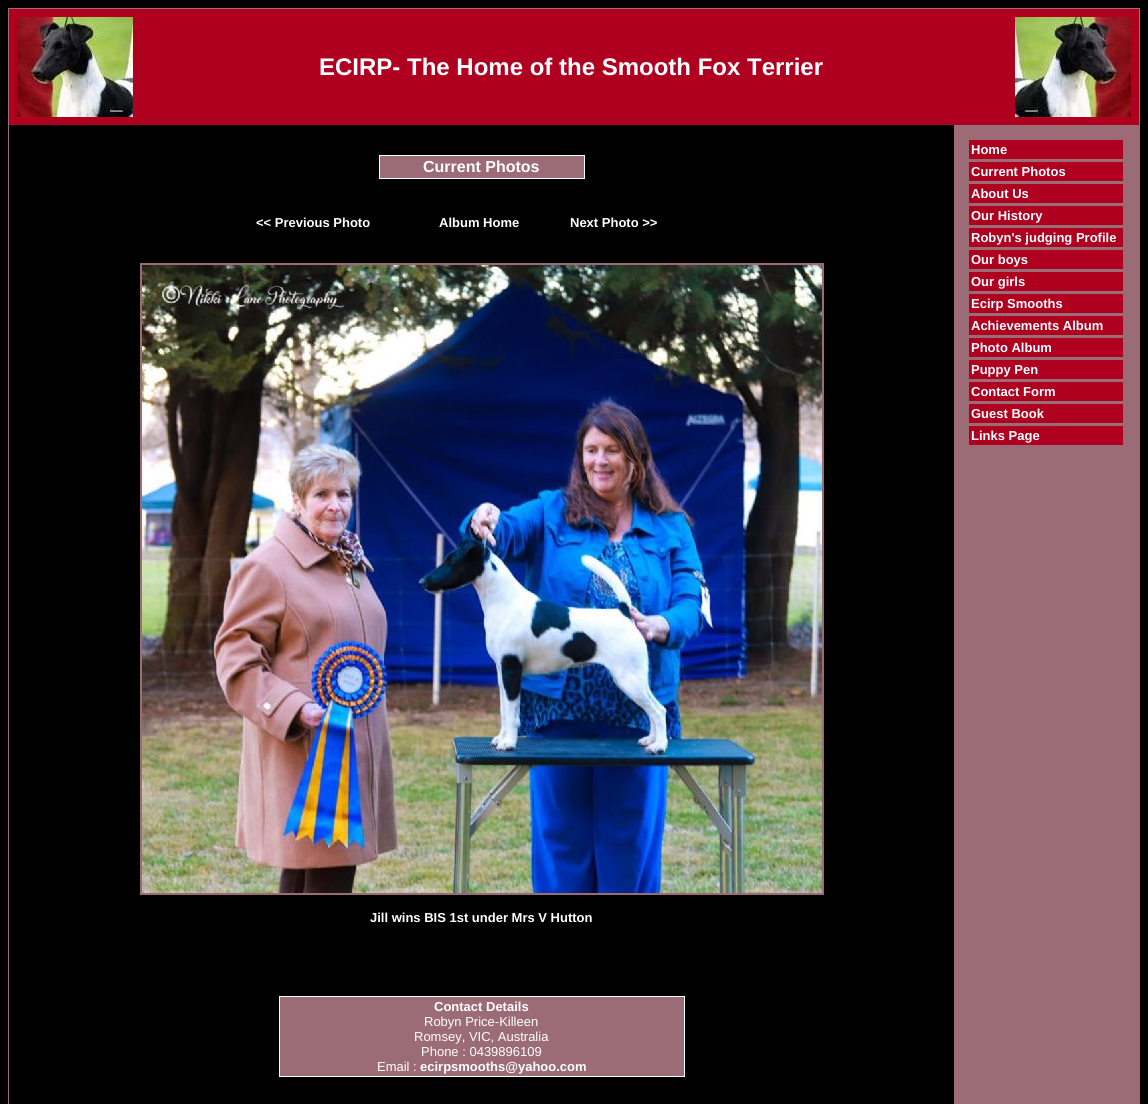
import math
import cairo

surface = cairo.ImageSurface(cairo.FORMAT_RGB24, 1148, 1104)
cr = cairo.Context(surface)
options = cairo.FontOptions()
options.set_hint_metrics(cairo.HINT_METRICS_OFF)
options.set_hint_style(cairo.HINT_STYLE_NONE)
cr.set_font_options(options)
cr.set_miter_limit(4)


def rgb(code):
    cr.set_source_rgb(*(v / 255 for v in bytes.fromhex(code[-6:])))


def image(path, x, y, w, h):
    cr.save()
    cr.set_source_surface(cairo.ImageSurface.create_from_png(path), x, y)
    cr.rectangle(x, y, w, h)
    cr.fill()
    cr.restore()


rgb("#000000")
cr.paint()
cr.rectangle(8.5, 8.5, 1131, 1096)
rgb("#9c6c76")
cr.set_line_width(1)
cr.stroke()
rgb("#af0020")
cr.rectangle(9, 9, 1130, 116)
cr.fill()
image("img/1.png", 17, 17, 116, 100)
image("img/2.png", 1015, 17, 116, 100)
rgb("#9c6c76")
cr.rectangle(379.5, 155.5, 205, 23)
cr.fill_preserve()
rgb("#ffffff")
cr.stroke()
rgb("#9c6c76")
cr.rectangle(140, 263, 684, 632)
cr.fill()
image("img/3.png", 142, 265, 680, 628)
cr.rectangle(279.5, 996.5, 405, 80)
cr.fill_preserve()
rgb("#ffffff")
cr.stroke()
for x, y, w, h, color in [
    (954, 125, 185, 979, "#9c6c76"),
    (969, 140, 154, 19, "#af0020"),
    (969, 162, 154, 19, "#af0020"),
    (969, 184, 154, 19, "#af0020"),
    (969, 206, 154, 19, "#af0020"),
    (969, 228, 154, 19, "#af0020"),
    (969, 250, 154, 19, "#af0020"),
    (969, 272, 154, 19, "#af0020"),
    (969, 294, 154, 19, "#af0020"),
    (969, 316, 154, 19, "#af0020"),
    (969, 338, 154, 19, "#af0020"),
    (969, 360, 154, 19, "#af0020"),
    (969, 382, 154, 19, "#af0020"),
    (969, 404, 154, 19, "#af0020"),
    (969, 426, 154, 19, "#af0020"),
]:
    rgb(color)
    cr.rectangle(x, y, w, h)
    cr.fill()
cr.select_font_face("Liberation Sans", cairo.FONT_SLANT_NORMAL, cairo.FONT_WEIGHT_BOLD)
cr.set_font_size(24)
rgb("#ffffff")
cr.move_to(319, 75)
cr.show_text("ECIRP- The Home of the Smooth Fox Terrier")
cr.set_font_size(16)
cr.move_to(423, 172)
cr.show_text("Current Photos")
cr.set_font_size(13)
for x, y, s in [
    (256, 227, "<< Previous Photo"),
    (439, 227, "Album Home"),
    (570, 227, "Next Photo >>"),
    (370, 922, "Jill wins BIS 1st under Mrs V Hutton"),
    (434, 1011, "Contact Details"),
]:
    cr.move_to(x, y)
    cr.show_text(s)
cr.select_font_face("Liberation Sans")
for x, y, s in [
    (424, 1026, "Robyn Price-Killeen"),
    (414, 1041, "Romsey, VIC, Australia"),
    (421, 1056, "Phone : 0439896109"),
    (377, 1071, "Email :"),
]:
    cr.move_to(x, y)
    cr.show_text(s)
cr.select_font_face("Liberation Sans", cairo.FONT_SLANT_NORMAL, cairo.FONT_WEIGHT_BOLD)
for x, y, s in [
    (420, 1071, "ecirpsmooths@yahoo.com"),
    (971, 154, "Home"),
    (971, 176, "Current Photos"),
    (971, 198, "About Us"),
    (971, 220, "Our History"),
    (971, 242, "Robyn's judging Profile"),
    (971, 264, "Our boys"),
    (971, 286, "Our girls"),
    (971, 308, "Ecirp Smooths"),
    (971, 330, "Achievements Album"),
    (971, 352, "Photo Album"),
    (971, 374, "Puppy Pen"),
    (971, 396, "Contact Form"),
    (971, 418, "Guest Book"),
    (971, 440, "Links Page"),
]:
    cr.move_to(x, y)
    cr.show_text(s)
surface.write_to_png("page.png")
